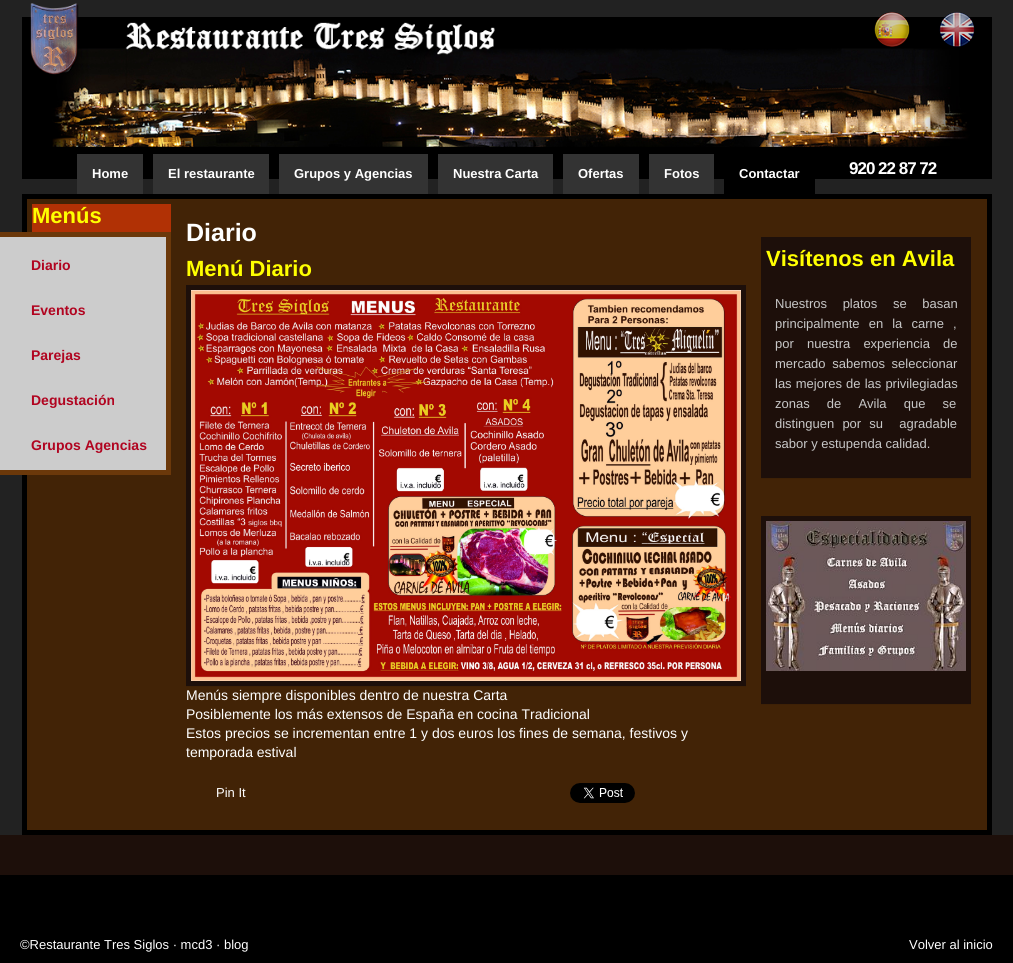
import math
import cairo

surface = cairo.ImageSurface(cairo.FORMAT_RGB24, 1013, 963)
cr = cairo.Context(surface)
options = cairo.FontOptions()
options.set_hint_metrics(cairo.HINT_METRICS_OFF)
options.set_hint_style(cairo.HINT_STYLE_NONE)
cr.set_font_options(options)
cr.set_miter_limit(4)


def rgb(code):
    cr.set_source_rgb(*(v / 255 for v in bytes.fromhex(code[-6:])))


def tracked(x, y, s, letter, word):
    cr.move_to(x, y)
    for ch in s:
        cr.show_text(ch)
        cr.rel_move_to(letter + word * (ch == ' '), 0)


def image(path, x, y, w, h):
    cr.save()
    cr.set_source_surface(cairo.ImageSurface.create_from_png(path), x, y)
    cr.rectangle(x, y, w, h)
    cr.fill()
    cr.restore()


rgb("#222222")
cr.paint()
image("img/1.png", 22, 17, 970, 162)
image("img/2.png", 30, 3, 49, 72)
image("img/3.png", 874, 12, 36, 35)
image("img/4.png", 939, 12, 36, 35)
for x, y, w, h, color in [
    (77, 154, 66, 40, "#333333"),
    (153, 154, 116, 40, "#333333"),
    (279, 154, 149, 40, "#333333"),
    (438, 154, 115, 40, "#333333"),
    (563, 154, 76, 40, "#333333"),
    (649, 154, 65, 40, "#333333"),
    (724, 179, 91, 15, "#000000"),
]:
    rgb(color)
    cr.rectangle(x, y, w, h)
    cr.fill()
rgb("#422306")
cr.rectangle(24.5, 196.5, 965, 636)
cr.fill_preserve()
rgb("#000000")
cr.set_line_width(5)
cr.stroke()
rgb("#b13105")
cr.rectangle(32, 204, 139, 28)
cr.fill()
rgb("#cccccc")
cr.rectangle(-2.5, 234.5, 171, 238)
cr.fill_preserve()
rgb("#6b380a")
cr.stroke()
rgb("#3e2106")
cr.rectangle(186, 686, 560, 1)
cr.fill()
rgb("#1d0f0a")
cr.rectangle(186, 285, 560, 401)
cr.fill()
image("img/5.png", 191, 290, 550, 391)
image("img/6.png", 570, 783, 65, 20)
for x, y, w, h, color in [
    (761, 478, 210, 1, "#3e2106"),
    (761, 237, 210, 241, "#1d0f0a"),
    (761, 704, 210, 1, "#3e2106"),
    (761, 516, 210, 188, "#1d0f0a"),
]:
    rgb(color)
    cr.rectangle(x, y, w, h)
    cr.fill()
image("img/7.png", 766, 521, 200, 150)
cr.rectangle(0, 835, 1013, 40)
cr.fill()
rgb("#000000")
cr.rectangle(0, 875, 1013, 88)
cr.fill()
cr.select_font_face("Liberation Sans", cairo.FONT_SLANT_NORMAL, cairo.FONT_WEIGHT_BOLD)
cr.set_font_size(13)
rgb("#ffffff")
for x, y, s in [
    (92, 178, "Home"),
    (168, 178, "El restaurante"),
    (294, 178, "Grupos y Agencias"),
    (453, 178, "Nuestra Carta"),
    (578, 178, "Ofertas"),
    (664, 178, "Fotos"),
    (739, 178, "Contactar"),
]:
    cr.move_to(x, y)
    cr.show_text(s)
cr.set_font_size(17)
tracked(849, 174, "920 22 87 72", -1, 0)
cr.set_font_size(22)
rgb("#ffff00")
cr.move_to(32, 223)
cr.show_text("Menús")
cr.set_font_size(14)
rgb("#b10420")
for x, y, s in [
    (31, 270, "Diario"),
    (31, 315, "Eventos"),
    (31, 360, "Parejas"),
    (31, 405, "Degustación"),
    (31, 450, "Grupos Agencias"),
]:
    cr.move_to(x, y)
    cr.show_text(s)
cr.set_font_size(25)
rgb("#ffffff")
cr.move_to(186, 241)
cr.show_text("Diario")
cr.set_font_size(22)
rgb("#ffff00")
cr.move_to(186, 276)
cr.show_text("Menú Diario")
cr.select_font_face("Liberation Sans")
cr.set_font_size(14)
rgb("#ffffff")
for x, y, s in [
    (186, 700, "Menús siempre disponibles dentro de nuestra Carta"),
    (186, 719, "Posiblemente los más extensos de España en cocina Tradicional"),
    (186, 738, "Estos precios se incrementan entre 1 y dos euros los fines de semana, festivos y"),
    (186, 757, "temporada estival"),
]:
    cr.move_to(x, y)
    cr.show_text(s)
cr.set_font_size(13)
cr.move_to(216, 797)
cr.show_text("Pin It")
cr.select_font_face("Liberation Sans", cairo.FONT_SLANT_NORMAL, cairo.FONT_WEIGHT_BOLD)
cr.set_font_size(22)
rgb("#ffff00")
cr.move_to(766, 266)
cr.show_text("Visítenos en Avila")
cr.select_font_face("Liberation Sans")
cr.set_font_size(13)
rgb("#c7c7c7")
tracked(775, 308, "Nuestros platos se basan", 0, 12)
tracked(775, 328, "principalmente en la carne ,", 0, 5.5)
tracked(775, 348, "por nuestra experiencia de", 0, 9.5)
tracked(775, 368, "mercado sabemos seleccionar", 0, 3)
tracked(775, 388, "las mejores de las privilegiadas", 0, 0.5)
tracked(775, 408, "zonas de Avila que se", 0, 13.5)
tracked(775, 428, "distinguen por su  agradable", 0, 4.5)
cr.move_to(775, 448)
cr.show_text("sabor y estupenda calidad.")
rgb("#ffffff")
cr.move_to(20, 949)
cr.show_text("©Restaurante Tres Siglos · mcd3 · blog")
cr.move_to(909, 949)
cr.show_text("Volver al inicio")
surface.write_to_png("page.png")
